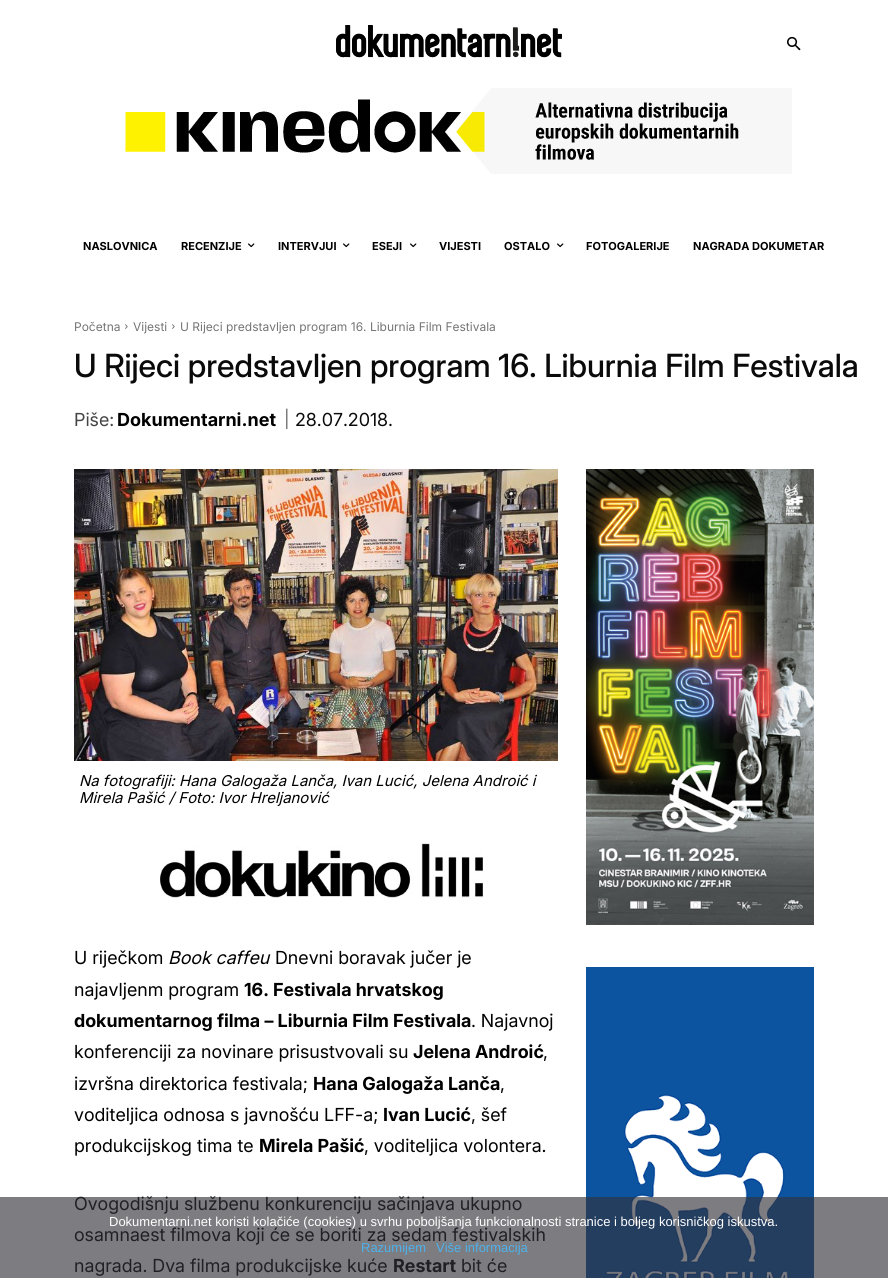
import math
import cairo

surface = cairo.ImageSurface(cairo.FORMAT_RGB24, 888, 1278)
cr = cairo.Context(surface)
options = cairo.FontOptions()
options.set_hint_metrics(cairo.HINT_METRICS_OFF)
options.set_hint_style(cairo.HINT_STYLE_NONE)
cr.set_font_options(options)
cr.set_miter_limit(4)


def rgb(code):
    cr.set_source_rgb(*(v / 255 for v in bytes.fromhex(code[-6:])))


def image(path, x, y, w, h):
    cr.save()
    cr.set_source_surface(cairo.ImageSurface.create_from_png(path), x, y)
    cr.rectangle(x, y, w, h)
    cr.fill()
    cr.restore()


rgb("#ffffff")
cr.paint()
image("img/1.png", 336, 25, 226, 33)
image("img/2.png", 787, 36, 14, 15)
image("img/3.png", 120, 88, 672, 86)
image("img/4.png", 248, 243, 7, 5)
image("img/4.png", 343, 243, 7, 5)
image("img/4.png", 410, 243, 7, 5)
image("img/4.png", 557, 243, 7, 5)
image("img/5.png", 125, 324, 3, 5)
image("img/5.png", 172, 324, 3, 5)
image("img/6.png", 74, 469, 484, 292)
image("img/7.png", 160, 843, 323, 55)
image("img/8.png", 586, 469, 228, 456)
image("img/9.png", 586, 967, 228, 311)
cr.select_font_face("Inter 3", cairo.FONT_SLANT_NORMAL, cairo.FONT_WEIGHT_BOLD)
cr.set_font_size(11)
rgb("#000000")
for x, y, s in [
    (83, 250, "NASLOVNICA"),
    (181, 250, "RECENZIJE"),
    (278, 250, "INTERVJUI"),
    (372, 250, "ESEJI"),
    (439, 250, "VIJESTI"),
    (504, 250, "OSTALO"),
    (586, 250, "FOTOGALERIJE"),
    (693, 250, "NAGRADA DOKUMETAR"),
]:
    cr.move_to(x, y)
    cr.show_text(s)
cr.select_font_face("Inter")
cr.set_font_size(12)
rgb("#747474")
for x, y, s in [
    (74, 331, "Početna"),
    (133, 331, "Vijesti"),
    (180, 331, "U Rijeci predstavljen program 16. Liburnia Film Festivala"),
]:
    cr.move_to(x, y)
    cr.show_text(s)
cr.select_font_face("Inter Medium")
cr.set_font_size(32)
rgb("#0a0a0a")
cr.move_to(74, 377)
cr.show_text("U Rijeci predstavljen program 16. Liburnia Film Festivala")
cr.select_font_face("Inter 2")
cr.set_font_size(18)
rgb("#444444")
cr.move_to(74, 426)
cr.show_text("Piše:")
cr.select_font_face("Inter", cairo.FONT_SLANT_NORMAL, cairo.FONT_WEIGHT_BOLD)
rgb("#000000")
cr.move_to(117, 426)
cr.show_text("Dokumentarni.net")
cr.select_font_face("Inter 3")
cr.set_font_size(17)
rgb("#666666")
cr.move_to(284, 425)
cr.show_text("|")
cr.select_font_face("Inter 2")
cr.set_font_size(18)
rgb("#0a0a0a")
cr.move_to(295, 426)
cr.show_text("28.07.2018.")
cr.select_font_face("Inter", cairo.FONT_SLANT_ITALIC)
cr.set_font_size(15)
rgb("#000000")
cr.move_to(79, 786)
cr.show_text("Na fotografiji: Hana Galogaža Lanča, Ivan Lucić, Jelena Androić i")
cr.move_to(79, 803)
cr.show_text("Mirela Pašić / Foto: Ivor Hreljanović")
cr.select_font_face("Inter 2")
cr.set_font_size(18)
cr.move_to(74, 964)
cr.show_text("U riječkom")
cr.select_font_face("Inter 2", cairo.FONT_SLANT_ITALIC)
cr.move_to(168, 964)
cr.show_text("Book caffeu")
cr.select_font_face("Inter 2")
cr.move_to(275, 964)
cr.show_text("Dnevni boravak jučer je")
cr.move_to(74, 996)
cr.show_text("najavljenm program")
cr.select_font_face("Inter 2", cairo.FONT_SLANT_NORMAL, cairo.FONT_WEIGHT_BOLD)
cr.move_to(244, 996)
cr.show_text("16. Festivala hrvatskog")
cr.move_to(74, 1027)
cr.show_text("dokumentarnog filma – Liburnia Film Festivala")
cr.select_font_face("Inter 2")
cr.move_to(471, 1027)
cr.show_text(". Najavnoj")
cr.move_to(74, 1058)
cr.show_text("konferenciji za novinare prisustvovali su")
cr.select_font_face("Inter 2", cairo.FONT_SLANT_NORMAL, cairo.FONT_WEIGHT_BOLD)
cr.move_to(413, 1058)
cr.show_text("Jelena Androić")
cr.select_font_face("Inter 2")
cr.move_to(543, 1058)
cr.show_text(",")
cr.move_to(74, 1090)
cr.show_text("izvršna direktorica festivala;")
cr.select_font_face("Inter 2", cairo.FONT_SLANT_NORMAL, cairo.FONT_WEIGHT_BOLD)
cr.move_to(313, 1090)
cr.show_text("Hana Galogaža Lanča")
cr.select_font_face("Inter 2")
cr.move_to(500, 1090)
cr.show_text(",")
cr.move_to(74, 1121)
cr.show_text("voditeljica odnosa s javnošću LFF-a;")
cr.select_font_face("Inter 2", cairo.FONT_SLANT_NORMAL, cairo.FONT_WEIGHT_BOLD)
cr.move_to(383, 1121)
cr.show_text("Ivan Lucić")
cr.select_font_face("Inter 2")
cr.move_to(471, 1121)
cr.show_text(", šef")
cr.move_to(74, 1152)
cr.show_text("produkcijskog tima te")
cr.select_font_face("Inter 2", cairo.FONT_SLANT_NORMAL, cairo.FONT_WEIGHT_BOLD)
cr.move_to(259, 1152)
cr.show_text("Mirela Pašić")
cr.select_font_face("Inter 2")
for x, y, s in [
    (364, 1152, ", voditeljica volontera."),
    (74, 1210, "Ovogodišnju službenu konkurenciju sačinjava ukupno"),
    (74, 1241, "osamnaest filmova koji će se boriti za sedam festivalskih"),
    (74, 1272, "nagrada. Dva filma produkcijske kuće"),
]:
    cr.move_to(x, y)
    cr.show_text(s)
cr.select_font_face("Inter 2", cairo.FONT_SLANT_NORMAL, cairo.FONT_WEIGHT_BOLD)
cr.move_to(393, 1272)
cr.show_text("Restart")
cr.select_font_face("Inter 2")
cr.move_to(461, 1272)
cr.show_text("bit će")
cr.set_source_rgba(0.196, 0.196, 0.227, 0.64)
cr.rectangle(0, 1197, 888, 81)
cr.fill()
cr.select_font_face("Liberation Sans")
cr.set_font_size(13)
rgb("#ffffff")
cr.move_to(109, 1226)
cr.show_text("Dokumentarni.net koristi kolačiće (cookies) u svrhu poboljšanja funkcionalnosti stranice i boljeg korisničkog iskustva.")
rgb("#4db2ec")
cr.move_to(361, 1252)
cr.show_text("Razumijem")
cr.move_to(436, 1252)
cr.show_text("Više informacija")
surface.write_to_png("page.png")
